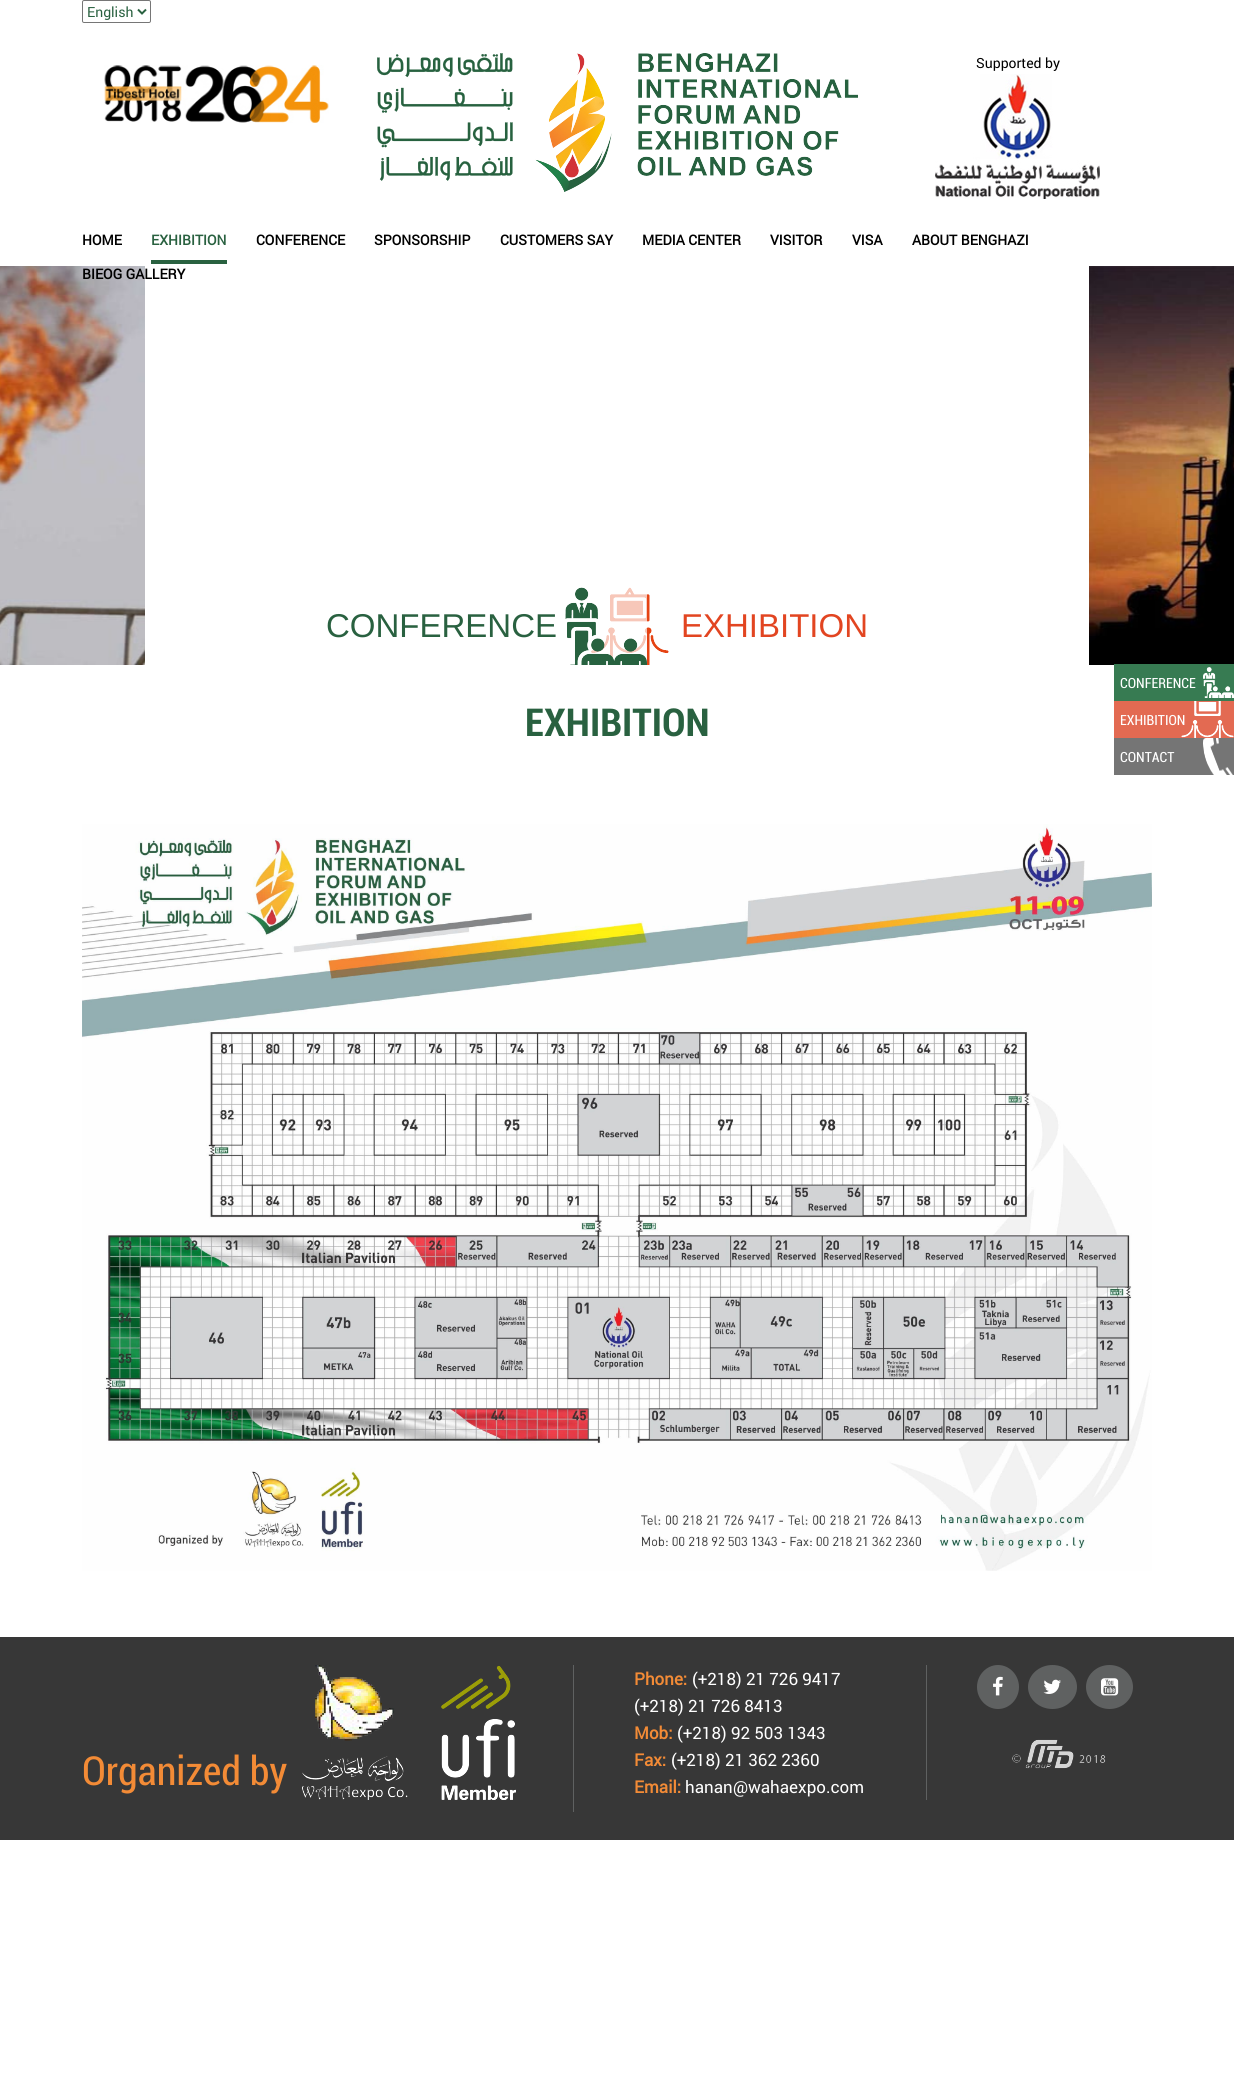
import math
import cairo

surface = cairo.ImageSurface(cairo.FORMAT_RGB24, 1234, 2088)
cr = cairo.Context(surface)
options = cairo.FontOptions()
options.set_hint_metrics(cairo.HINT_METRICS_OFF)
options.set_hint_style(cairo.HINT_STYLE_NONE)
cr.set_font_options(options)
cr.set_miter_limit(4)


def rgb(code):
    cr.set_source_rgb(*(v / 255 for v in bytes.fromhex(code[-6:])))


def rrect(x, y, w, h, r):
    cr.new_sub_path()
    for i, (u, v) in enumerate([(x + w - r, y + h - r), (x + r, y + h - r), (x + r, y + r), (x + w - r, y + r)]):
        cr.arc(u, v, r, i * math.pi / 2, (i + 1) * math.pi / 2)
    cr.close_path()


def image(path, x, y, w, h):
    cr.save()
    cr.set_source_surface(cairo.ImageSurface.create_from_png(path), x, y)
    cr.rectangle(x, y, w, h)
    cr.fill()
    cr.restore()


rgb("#ffffff")
cr.paint()
rrect(82.5, 0.5, 68, 22, 1.5)
rgb("#767676")
cr.set_line_width(1)
cr.stroke()
cr.new_path()
cr.move_to(138, 9.5)
cr.line_to(142, 13.5)
cr.line_to(146, 9.5)
rgb("#296140")
cr.set_line_width(2)
cr.stroke()
image("img/1.png", 104, 65, 225, 58)
image("img/2.png", 377, 53, 481, 139)
image("img/3.png", 935, 74, 165, 125)
cr.rectangle(151, 260, 76, 4)
cr.fill()
image("img/4.png", 0, 266, 145, 399)
image("img/5.png", 1089, 266, 145, 399)
image("img/7.png", 591, 587, 78, 78)
cr.set_source_rgba(1, 1, 1, 0.7)
cr.rectangle(591, 587, 56, 78)
cr.fill()
image("img/6.png", 565, 587, 82, 78)
rgb("#377b52")
cr.rectangle(1114, 664, 120, 37)
cr.fill()
image("img/8.png", 1203, 667, 31, 31)
rgb("#e36a52")
cr.rectangle(1114, 701, 120, 37)
cr.fill()
image("img/9.png", 1181, 701, 53, 37)
rgb("#757575")
cr.rectangle(1114, 738, 120, 37)
cr.fill()
image("img/10.png", 1203, 738, 30, 37)
image("img/11.png", 82, 824, 1070, 747)
rgb("#373737")
cr.rectangle(0, 1637, 1234, 203)
cr.fill()
rgb("#5f6161")
cr.rectangle(573, 1665, 1, 147)
cr.fill()
image("img/12.png", 302, 1665, 214, 135)
cr.rectangle(926, 1665, 1, 135)
cr.fill()
cr.new_path()
cr.move_to(998, 1665)
cr.curve_to(1009.5, 1665, 1019, 1675, 1019, 1687)
cr.curve_to(1019, 1699, 1009.5, 1709, 998, 1709)
cr.curve_to(986.5, 1709, 977, 1699, 977, 1687)
cr.curve_to(977, 1675, 986.5, 1665, 998, 1665)
cr.close_path()
cr.fill()
image("img/13.png", 993, 1676, 10, 20)
cr.new_path()
cr.move_to(1052.5, 1665)
cr.curve_to(1066, 1665, 1077, 1675, 1077, 1687)
cr.curve_to(1077, 1699, 1066, 1709, 1052.5, 1709)
cr.curve_to(1039, 1709, 1028, 1699, 1028, 1687)
cr.curve_to(1028, 1675, 1039, 1665, 1052.5, 1665)
cr.close_path()
cr.fill()
image("img/14.png", 1043, 1679, 18, 15)
cr.new_path()
cr.move_to(1109.5, 1665)
cr.curve_to(1122.5, 1665, 1133, 1675, 1133, 1687)
cr.curve_to(1133, 1699, 1122.5, 1709, 1109.5, 1709)
cr.curve_to(1096.5, 1709, 1086, 1699, 1086, 1687)
cr.curve_to(1086, 1675, 1096.5, 1665, 1109.5, 1665)
cr.close_path()
cr.fill()
image("img/15.png", 1101, 1678, 18, 18)
image("img/16.png", 1012, 1739, 94, 30)
cr.select_font_face("Roboto")
cr.set_font_size(14)
rgb("#296140")
cr.move_to(87, 17)
cr.show_text("English")
rgb("#000000")
cr.move_to(976, 68)
cr.show_text("Supported by")
cr.select_font_face("Roboto", cairo.FONT_SLANT_NORMAL, cairo.FONT_WEIGHT_BOLD)
cr.move_to(82, 245)
cr.show_text("HOME")
rgb("#296140")
cr.move_to(151, 245)
cr.show_text("EXHIBITION")
rgb("#000000")
for x, y, s in [
    (256, 245, "CONFERENCE"),
    (374, 245, "SPONSORSHIP"),
    (500, 245, "CUSTOMERS SAY"),
    (642, 245, "MEDIA CENTER"),
    (770, 245, "VISITOR"),
    (852, 245, "VISA"),
    (912, 245, "ABOUT BENGHAZI"),
    (82, 279, "BIEOG GALLERY"),
]:
    cr.move_to(x, y)
    cr.show_text(s)
cr.select_font_face("Liberation Sans")
cr.set_font_size(33)
rgb("#296140")
cr.move_to(326, 637)
cr.show_text("CONFERENCE")
rgb("#e24521")
cr.move_to(681, 637)
cr.show_text("EXHIBITION")
cr.select_font_face("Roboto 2")
cr.set_font_size(14)
rgb("#ffffff")
for x, y, s in [
    (1120, 688, "CONFERENCE"),
    (1120, 725, "EXHIBITION"),
    (1120, 762, "CONTACT"),
]:
    cr.move_to(x, y)
    cr.show_text(s)
cr.select_font_face("Roboto 2", cairo.FONT_SLANT_NORMAL, cairo.FONT_WEIGHT_BOLD)
cr.set_font_size(40)
rgb("#296140")
cr.move_to(525, 736)
cr.show_text("EXHIBITION")
cr.select_font_face("Roboto 2")
rgb("#f38b36")
cr.move_to(82, 1785)
cr.show_text("Organized by")
cr.select_font_face("Roboto", cairo.FONT_SLANT_NORMAL, cairo.FONT_WEIGHT_BOLD)
cr.set_font_size(17)
cr.move_to(634, 1685)
cr.show_text("Phone:")
cr.select_font_face("Roboto")
rgb("#ffffff")
cr.move_to(692, 1685)
cr.show_text("(+218) 21 726 9417")
cr.move_to(634, 1712)
cr.show_text("(+218) 21 726 8413")
cr.select_font_face("Roboto", cairo.FONT_SLANT_NORMAL, cairo.FONT_WEIGHT_BOLD)
rgb("#f38b36")
cr.move_to(634, 1739)
cr.show_text("Mob:")
cr.select_font_face("Roboto")
rgb("#ffffff")
cr.move_to(677, 1739)
cr.show_text("(+218) 92 503 1343")
cr.select_font_face("Roboto", cairo.FONT_SLANT_NORMAL, cairo.FONT_WEIGHT_BOLD)
rgb("#f38b36")
cr.move_to(634, 1766)
cr.show_text("Fax:")
cr.select_font_face("Roboto")
rgb("#ffffff")
cr.move_to(671, 1766)
cr.show_text("(+218) 21 362 2360")
cr.select_font_face("Roboto", cairo.FONT_SLANT_NORMAL, cairo.FONT_WEIGHT_BOLD)
rgb("#f38b36")
cr.move_to(634, 1793)
cr.show_text("Email:")
cr.select_font_face("Roboto")
rgb("#ffffff")
cr.move_to(685, 1793)
cr.show_text("hanan@wahaexpo.com")
surface.write_to_png("page.png")
